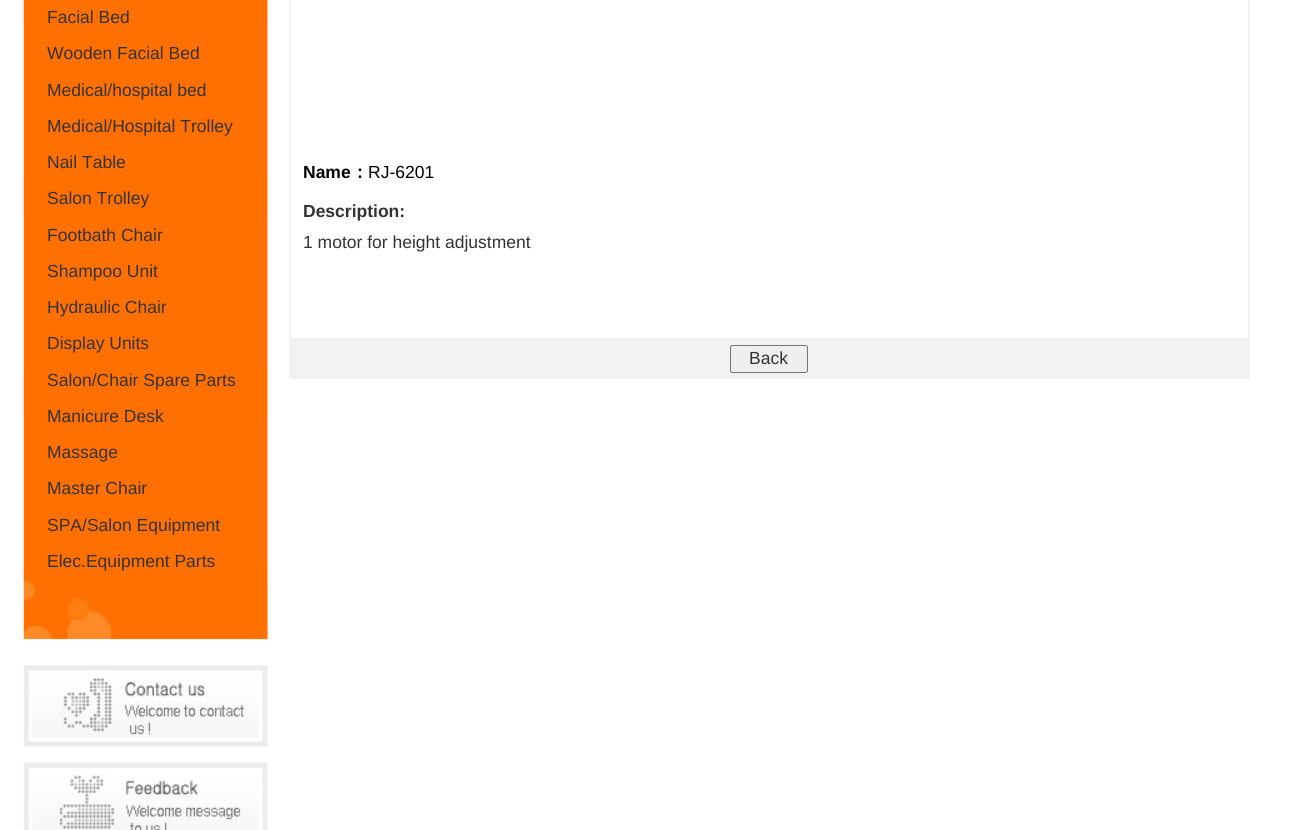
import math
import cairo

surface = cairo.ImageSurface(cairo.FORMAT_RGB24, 1291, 830)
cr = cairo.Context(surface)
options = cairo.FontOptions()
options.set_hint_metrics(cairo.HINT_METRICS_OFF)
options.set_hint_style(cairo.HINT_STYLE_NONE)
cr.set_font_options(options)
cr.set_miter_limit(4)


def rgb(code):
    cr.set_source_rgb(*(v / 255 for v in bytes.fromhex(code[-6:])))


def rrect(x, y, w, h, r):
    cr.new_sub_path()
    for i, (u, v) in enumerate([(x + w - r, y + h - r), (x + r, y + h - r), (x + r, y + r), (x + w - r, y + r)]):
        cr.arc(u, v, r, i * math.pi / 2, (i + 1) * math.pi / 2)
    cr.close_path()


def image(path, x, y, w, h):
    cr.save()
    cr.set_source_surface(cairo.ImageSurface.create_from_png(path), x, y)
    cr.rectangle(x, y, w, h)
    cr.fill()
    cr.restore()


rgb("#ffffff")
cr.paint()
image("img/1.png", 23, 0, 245, 579)
image("img/2.png", 23, 579, 245, 61)
image("img/3.png", 23, 665, 245, 165)
cr.rectangle(289.5, -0.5, 960, 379)
rgb("#f2f2f2")
cr.set_line_width(1)
cr.stroke()
cr.rectangle(290.5, -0.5, 958, 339)
cr.stroke()
cr.rectangle(290, 339, 959, 39)
cr.fill()
rgb("#efefef")
rrect(730.5, 345.5, 77, 27, 2)
cr.fill_preserve()
rgb("#767676")
cr.stroke()
cr.select_font_face("Liberation Sans")
cr.set_font_size(17.5)
rgb("#333333")
for x, y, s in [
    (47, 23, "Facial Bed"),
    (47, 59, "Wooden Facial Bed"),
    (47, 96, "Medical/hospital bed"),
    (47, 132, "Medical/Hospital Trolley"),
    (47, 168, "Nail Table"),
    (47, 204, "Salon Trolley"),
    (47, 241, "Footbath Chair"),
    (47, 277, "Shampoo Unit"),
    (47, 313, "Hydraulic Chair"),
    (47, 349, "Display Units"),
    (47, 386, "Salon/Chair Spare Parts"),
    (47, 422, "Manicure Desk"),
    (47, 458, "Massage"),
    (47, 494, "Master Chair"),
    (47, 531, "SPA/Salon Equipment"),
    (47, 567, "Elec.Equipment Parts"),
]:
    cr.move_to(x, y)
    cr.show_text(s)
cr.select_font_face("Liberation Sans", cairo.FONT_SLANT_NORMAL, cairo.FONT_WEIGHT_BOLD)
rgb("#000000")
cr.move_to(303, 178)
cr.show_text("Name")
cr.select_font_face("WenQuanYi Zen Hei", cairo.FONT_SLANT_NORMAL, cairo.FONT_WEIGHT_BOLD)
cr.move_to(351, 178)
cr.show_text("：")
cr.select_font_face("Liberation Sans")
cr.move_to(368, 178)
cr.show_text("RJ-6201")
cr.select_font_face("Liberation Sans", cairo.FONT_SLANT_NORMAL, cairo.FONT_WEIGHT_BOLD)
rgb("#333333")
cr.move_to(303, 217)
cr.show_text("Description:")
cr.select_font_face("Liberation Sans")
cr.move_to(303, 248)
cr.show_text("1 motor for height adjustment")
cr.move_to(749, 364)
cr.show_text("Back")
surface.write_to_png("page.png")
